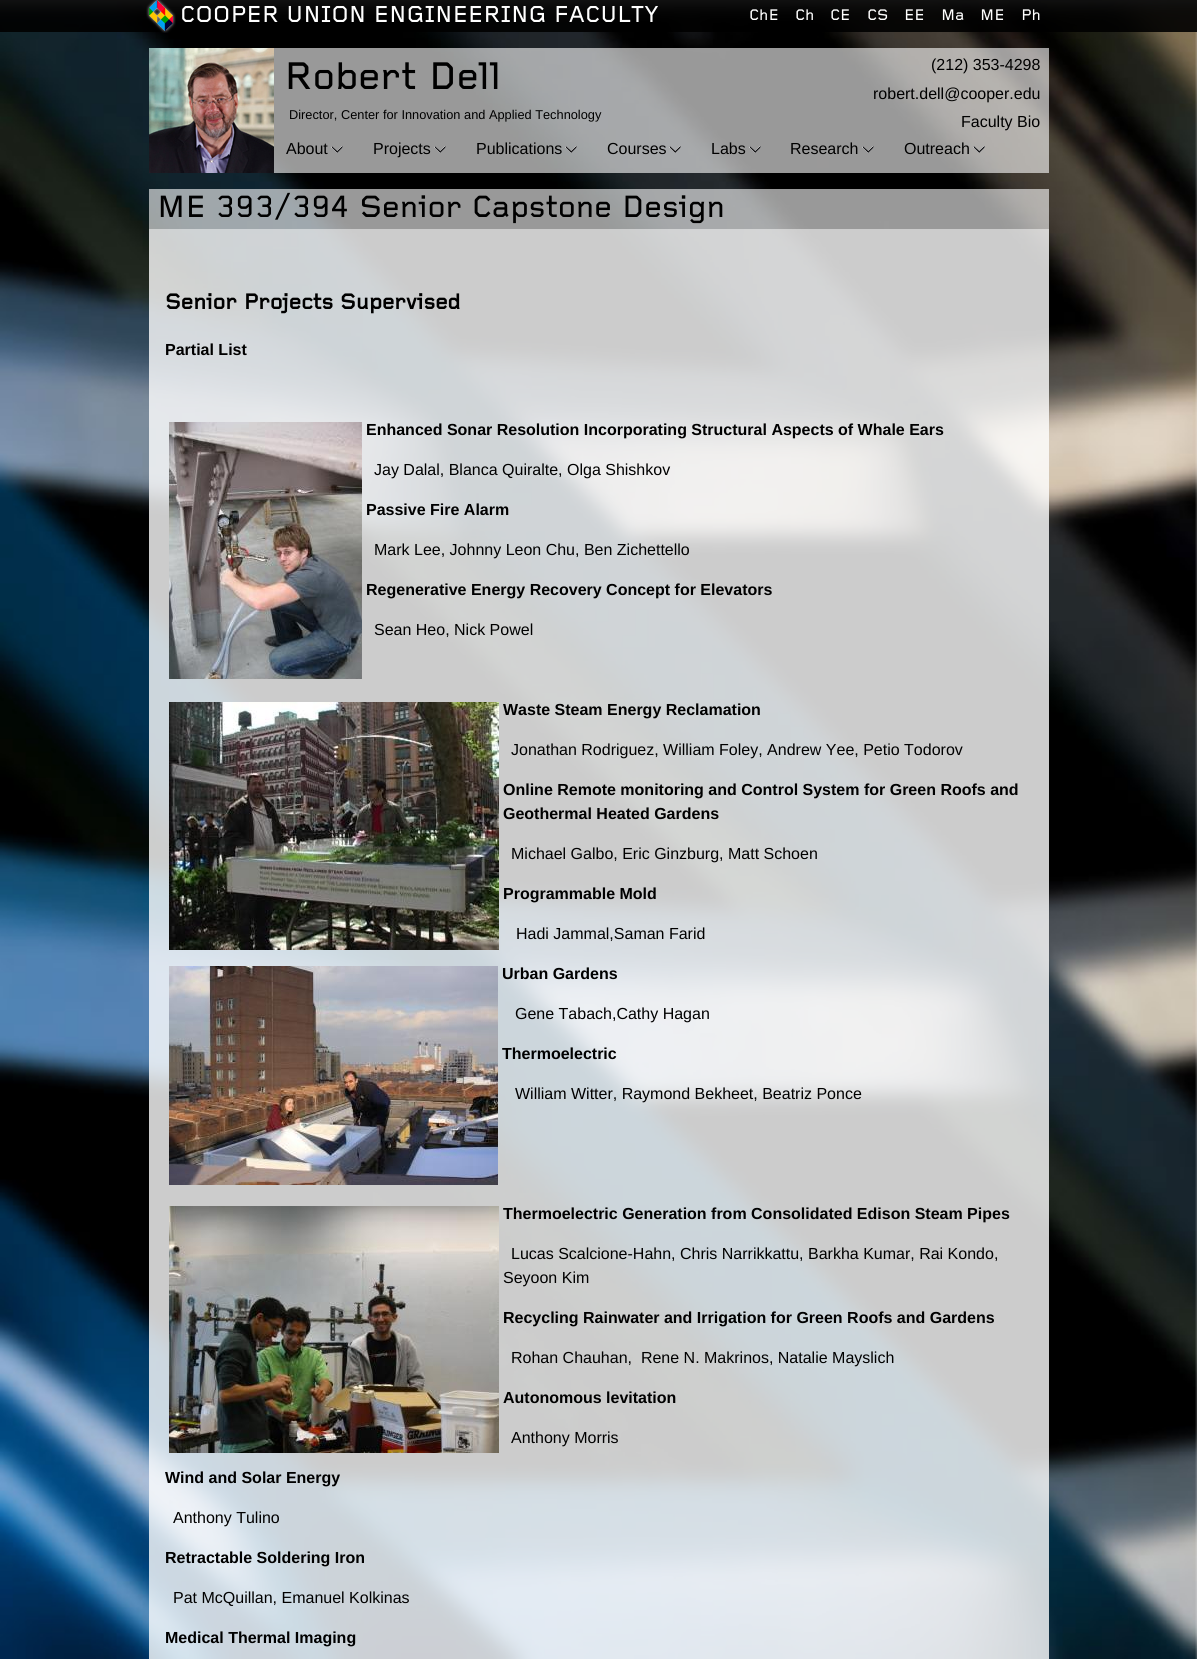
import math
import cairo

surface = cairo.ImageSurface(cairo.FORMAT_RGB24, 1197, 1659)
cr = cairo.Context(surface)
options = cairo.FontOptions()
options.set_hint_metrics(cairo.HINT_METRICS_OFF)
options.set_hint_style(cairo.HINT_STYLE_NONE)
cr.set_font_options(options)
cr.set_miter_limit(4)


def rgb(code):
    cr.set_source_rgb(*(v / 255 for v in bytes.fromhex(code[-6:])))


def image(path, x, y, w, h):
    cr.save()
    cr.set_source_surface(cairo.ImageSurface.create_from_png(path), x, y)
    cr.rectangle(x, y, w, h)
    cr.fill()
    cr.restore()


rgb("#ffffff")
cr.paint()
image("img/1.png", 0, 0, 1197, 1659)
cr.set_source_rgba(0, 0, 0, 0.9)
cr.rectangle(0, 0, 1197, 32)
cr.fill()
image("img/2.png", 146, 0, 30, 33)
image("img/3.png", 149, 48, 125, 125)
cr.set_source_rgba(1, 1, 1, 0.6)
cr.rectangle(274, 48, 775, 125)
cr.fill()
image("img/4.png", 331, 146, 12, 7)
image("img/4.png", 434, 146, 12, 7)
image("img/5.png", 565, 146, 12, 7)
image("img/6.png", 669, 146, 12, 7)
image("img/4.png", 749, 146, 12, 7)
image("img/4.png", 862, 146, 12, 7)
image("img/7.png", 973, 146, 12, 7)
cr.rectangle(149, 189, 900, 40)
cr.fill()
cr.set_source_rgba(1, 1, 1, 0.8)
cr.rectangle(149, 229, 900, 1430)
cr.fill()
image("img/8.png", 169, 422, 193, 257)
image("img/9.png", 169, 702, 330, 248)
image("img/10.png", 169, 966, 329, 219)
image("img/11.png", 169, 1206, 330, 247)
cr.select_font_face("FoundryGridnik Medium")
cr.set_font_size(24)
rgb("#ffffff")
cr.move_to(180, 22)
cr.show_text("COOPER UNION ENGINEERING FACULTY")
cr.set_font_size(16)
for x, y, s in [
    (749, 20, "ChE"),
    (795, 20, "Ch"),
    (830, 20, "CE"),
    (867, 20, "CS"),
    (904, 20, "EE"),
    (941, 20, "Ma"),
    (980, 20, "ME"),
    (1021, 20, "Ph"),
]:
    cr.move_to(x, y)
    cr.show_text(s)
cr.set_font_size(40)
rgb("#000000")
cr.move_to(284, 89)
cr.show_text("Robert Dell")
cr.select_font_face("Liberation Sans")
cr.set_font_size(16)
for x, y, s in [
    (931, 70, "(212) 353-4298"),
    (873, 99, "robert.dell@cooper.edu"),
    (961, 127, "Faculty Bio"),
]:
    cr.move_to(x, y)
    cr.show_text(s)
cr.set_font_size(12.8)
cr.move_to(289, 119)
cr.show_text("Director, Center for Innovation and Applied Technology")
cr.set_font_size(16)
for x, y, s in [
    (286, 154, "About"),
    (373, 154, "Projects"),
    (476, 154, "Publications"),
    (607, 154, "Courses"),
    (711, 154, "Labs"),
    (790, 154, "Research"),
    (904, 154, "Outreach"),
]:
    cr.move_to(x, y)
    cr.show_text(s)
cr.select_font_face("FoundryGridnik Medium")
cr.set_font_size(32)
cr.move_to(157, 217)
cr.show_text("ME 393/394 Senior Capstone Design")
cr.select_font_face("FoundryGridnik", cairo.FONT_SLANT_NORMAL, cairo.FONT_WEIGHT_BOLD)
cr.set_font_size(22.4)
cr.move_to(165, 309)
cr.show_text("Senior Projects Supervised")
cr.select_font_face("Liberation Sans", cairo.FONT_SLANT_NORMAL, cairo.FONT_WEIGHT_BOLD)
cr.set_font_size(16)
cr.move_to(165, 355)
cr.show_text("Partial List")
cr.move_to(366, 435)
cr.show_text("Enhanced Sonar Resolution Incorporating Structural Aspects of Whale Ears")
cr.select_font_face("Liberation Sans")
cr.move_to(374, 475)
cr.show_text("Jay Dalal, Blanca Quiralte, Olga Shishkov")
cr.select_font_face("Liberation Sans", cairo.FONT_SLANT_NORMAL, cairo.FONT_WEIGHT_BOLD)
cr.move_to(366, 515)
cr.show_text("Passive Fire Alarm")
cr.select_font_face("Liberation Sans")
cr.move_to(374, 555)
cr.show_text("Mark Lee, Johnny Leon Chu, Ben Zichettello")
cr.select_font_face("Liberation Sans", cairo.FONT_SLANT_NORMAL, cairo.FONT_WEIGHT_BOLD)
cr.move_to(366, 595)
cr.show_text("Regenerative Energy Recovery Concept for Elevators")
cr.select_font_face("Liberation Sans")
cr.move_to(374, 635)
cr.show_text("Sean Heo, Nick Powel")
cr.select_font_face("Liberation Sans", cairo.FONT_SLANT_NORMAL, cairo.FONT_WEIGHT_BOLD)
cr.move_to(503, 715)
cr.show_text("Waste Steam Energy Reclamation")
cr.select_font_face("Liberation Sans")
cr.move_to(511, 755)
cr.show_text("Jonathan Rodriguez, William Foley, Andrew Yee, Petio Todorov")
cr.select_font_face("Liberation Sans", cairo.FONT_SLANT_NORMAL, cairo.FONT_WEIGHT_BOLD)
cr.move_to(503, 795)
cr.show_text("Online Remote monitoring and Control System for Green Roofs and")
cr.move_to(503, 819)
cr.show_text("Geothermal Heated Gardens")
cr.select_font_face("Liberation Sans")
cr.move_to(511, 859)
cr.show_text("Michael Galbo, Eric Ginzburg, Matt Schoen")
cr.select_font_face("Liberation Sans", cairo.FONT_SLANT_NORMAL, cairo.FONT_WEIGHT_BOLD)
cr.move_to(503, 899)
cr.show_text("Programmable Mold")
cr.select_font_face("Liberation Sans")
cr.move_to(516, 939)
cr.show_text("Hadi Jammal,Saman Farid")
cr.select_font_face("Liberation Sans", cairo.FONT_SLANT_NORMAL, cairo.FONT_WEIGHT_BOLD)
cr.move_to(502, 979)
cr.show_text("Urban Gardens")
cr.select_font_face("Liberation Sans")
cr.move_to(515, 1019)
cr.show_text("Gene Tabach,Cathy Hagan")
cr.select_font_face("Liberation Sans", cairo.FONT_SLANT_NORMAL, cairo.FONT_WEIGHT_BOLD)
cr.move_to(502, 1059)
cr.show_text("Thermoelectric")
cr.select_font_face("Liberation Sans")
cr.move_to(515, 1099)
cr.show_text("William Witter, Raymond Bekheet, Beatriz Ponce")
cr.select_font_face("Liberation Sans", cairo.FONT_SLANT_NORMAL, cairo.FONT_WEIGHT_BOLD)
cr.move_to(503, 1219)
cr.show_text("Thermoelectric Generation from Consolidated Edison Steam Pipes")
cr.select_font_face("Liberation Sans")
cr.move_to(511, 1259)
cr.show_text("Lucas Scalcione-Hahn, Chris Narrikkattu, Barkha Kumar, Rai Kondo,")
cr.move_to(503, 1283)
cr.show_text("Seyoon Kim")
cr.select_font_face("Liberation Sans", cairo.FONT_SLANT_NORMAL, cairo.FONT_WEIGHT_BOLD)
cr.move_to(503, 1323)
cr.show_text("Recycling Rainwater and Irrigation for Green Roofs and Gardens")
cr.select_font_face("Liberation Sans")
cr.move_to(511, 1363)
cr.show_text("Rohan Chauhan,  Rene N. Makrinos, Natalie Mayslich")
cr.select_font_face("Liberation Sans", cairo.FONT_SLANT_NORMAL, cairo.FONT_WEIGHT_BOLD)
cr.move_to(503, 1403)
cr.show_text("Autonomous levitation")
cr.select_font_face("Liberation Sans")
cr.move_to(511, 1443)
cr.show_text("Anthony Morris")
cr.select_font_face("Liberation Sans", cairo.FONT_SLANT_NORMAL, cairo.FONT_WEIGHT_BOLD)
cr.move_to(165, 1483)
cr.show_text("Wind and Solar Energy")
cr.select_font_face("Liberation Sans")
cr.move_to(173, 1523)
cr.show_text("Anthony Tulino")
cr.select_font_face("Liberation Sans", cairo.FONT_SLANT_NORMAL, cairo.FONT_WEIGHT_BOLD)
cr.move_to(165, 1563)
cr.show_text("Retractable Soldering Iron")
cr.select_font_face("Liberation Sans")
cr.move_to(173, 1603)
cr.show_text("Pat McQuillan, Emanuel Kolkinas")
cr.select_font_face("Liberation Sans", cairo.FONT_SLANT_NORMAL, cairo.FONT_WEIGHT_BOLD)
cr.move_to(165, 1643)
cr.show_text("Medical Thermal Imaging")
surface.write_to_png("page.png")
